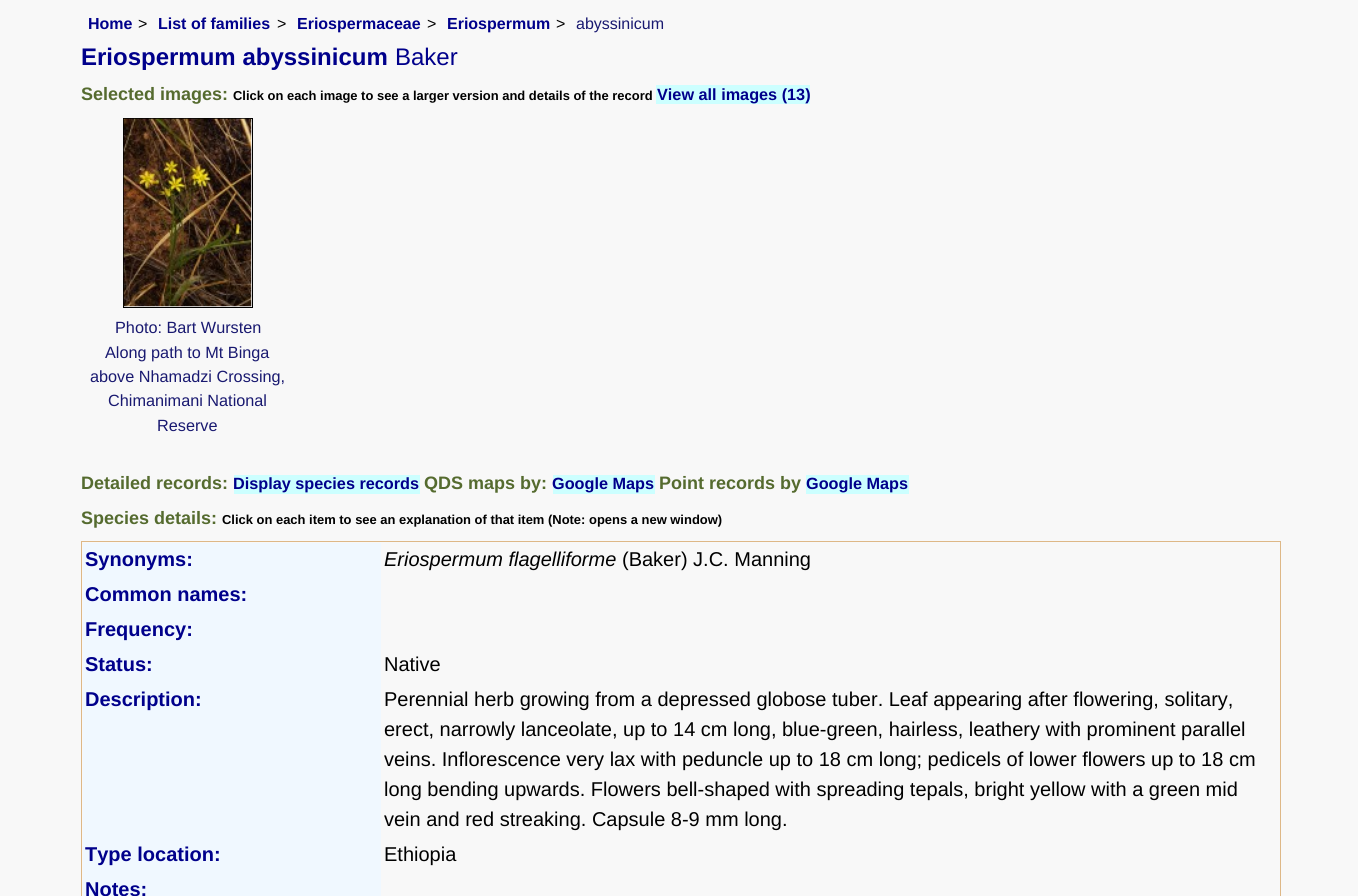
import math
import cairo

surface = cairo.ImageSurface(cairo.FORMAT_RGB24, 1358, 896)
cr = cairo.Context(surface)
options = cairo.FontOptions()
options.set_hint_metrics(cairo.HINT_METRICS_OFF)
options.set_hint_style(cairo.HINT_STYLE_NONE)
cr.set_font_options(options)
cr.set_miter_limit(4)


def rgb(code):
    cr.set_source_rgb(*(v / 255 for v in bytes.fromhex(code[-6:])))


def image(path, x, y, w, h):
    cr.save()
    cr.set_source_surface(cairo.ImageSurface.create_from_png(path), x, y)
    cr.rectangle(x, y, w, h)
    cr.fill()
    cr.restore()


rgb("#f8f8f8")
cr.paint()
rgb("#ccffff")
cr.rectangle(656, 85, 154, 19)
cr.fill()
cr.rectangle(123.5, 118.5, 129, 189)
rgb("#000000")
cr.set_line_width(1)
cr.stroke()
image("img/1.png", 123, 118, 129, 189)
for x, y, w, h, color in [
    (234, 475, 186, 19, "#ccffff"),
    (553, 475, 102, 19, "#ccffff"),
    (806, 475, 103, 19, "#ccffff"),
    (81, 541, 1200, 1, "#deb887"),
    (1280, 541, 1, 355, "#deb887"),
    (81, 541, 1, 355, "#deb887"),
    (83, 543, 298, 353, "#f0f8ff"),
]:
    rgb(color)
    cr.rectangle(x, y, w, h)
    cr.fill()
cr.select_font_face("Liberation Sans", cairo.FONT_SLANT_NORMAL, cairo.FONT_WEIGHT_BOLD)
cr.set_font_size(16)
rgb("#00008b")
cr.move_to(88, 29)
cr.show_text("Home")
cr.select_font_face("Liberation Sans")
rgb("#000000")
cr.move_to(138, 29)
cr.show_text(">")
cr.select_font_face("Liberation Sans", cairo.FONT_SLANT_NORMAL, cairo.FONT_WEIGHT_BOLD)
rgb("#00008b")
cr.move_to(158, 29)
cr.show_text("List of families")
cr.select_font_face("Liberation Sans")
rgb("#000000")
cr.move_to(277, 29)
cr.show_text(">")
cr.select_font_face("Liberation Sans", cairo.FONT_SLANT_NORMAL, cairo.FONT_WEIGHT_BOLD)
rgb("#00008b")
cr.move_to(297, 29)
cr.show_text("Eriospermaceae")
cr.select_font_face("Liberation Sans")
rgb("#000000")
cr.move_to(427, 29)
cr.show_text(">")
cr.select_font_face("Liberation Sans", cairo.FONT_SLANT_NORMAL, cairo.FONT_WEIGHT_BOLD)
rgb("#00008b")
cr.move_to(447, 29)
cr.show_text("Eriospermum")
cr.select_font_face("Liberation Sans")
rgb("#000000")
cr.move_to(556, 29)
cr.show_text(">")
rgb("#191970")
cr.move_to(576, 29)
cr.show_text("abyssinicum")
cr.select_font_face("Liberation Sans", cairo.FONT_SLANT_NORMAL, cairo.FONT_WEIGHT_BOLD)
cr.set_font_size(24)
rgb("#00008b")
cr.move_to(81, 65)
cr.show_text("Eriospermum abyssinicum")
cr.select_font_face("Liberation Sans")
cr.move_to(395, 65)
cr.show_text("Baker")
cr.select_font_face("Liberation Sans", cairo.FONT_SLANT_NORMAL, cairo.FONT_WEIGHT_BOLD)
cr.set_font_size(18)
rgb("#556b2f")
cr.move_to(81, 100)
cr.show_text("Selected images:")
cr.set_font_size(12.95)
rgb("#000000")
cr.move_to(233, 100)
cr.show_text("Click on each image to see a larger version and details of the record")
cr.set_font_size(16.25)
rgb("#00008b")
cr.move_to(657, 100)
cr.show_text("View all images (13)")
cr.select_font_face("Liberation Sans")
rgb("#191970")
for x, y, s in [
    (115, 333, "Photo: Bart Wursten"),
    (105, 358, "Along path to Mt Binga"),
    (90, 382, "above Nhamadzi Crossing,"),
    (108, 406, "Chimanimani National"),
    (157, 431, "Reserve"),
]:
    cr.move_to(x, y)
    cr.show_text(s)
cr.select_font_face("Liberation Sans", cairo.FONT_SLANT_NORMAL, cairo.FONT_WEIGHT_BOLD)
cr.set_font_size(18)
rgb("#556b2f")
cr.move_to(81, 489)
cr.show_text("Detailed records:")
cr.set_font_size(16.25)
rgb("#00008b")
cr.move_to(233, 489)
cr.show_text("Display species records")
cr.set_font_size(18)
rgb("#556b2f")
cr.move_to(424, 489)
cr.show_text("QDS maps by:")
cr.set_font_size(16.25)
rgb("#00008b")
cr.move_to(552, 489)
cr.show_text("Google Maps")
cr.set_font_size(18)
rgb("#556b2f")
cr.move_to(659, 489)
cr.show_text("Point records by")
cr.set_font_size(16.25)
rgb("#00008b")
cr.move_to(806, 489)
cr.show_text("Google Maps")
cr.set_font_size(18)
rgb("#556b2f")
cr.move_to(81, 524)
cr.show_text("Species details:")
cr.set_font_size(12.95)
rgb("#000000")
cr.move_to(222, 524)
cr.show_text("Click on each item to see an explanation of that item (Note: opens a new window)")
cr.set_font_size(20)
rgb("#00008b")
cr.move_to(85, 566)
cr.show_text("Synonyms:")
cr.select_font_face("Liberation Sans", cairo.FONT_SLANT_ITALIC)
rgb("#000000")
cr.move_to(384, 566)
cr.show_text("Eriospermum flagelliforme")
cr.select_font_face("Liberation Sans")
cr.move_to(622, 566)
cr.show_text("(Baker) J.C. Manning")
cr.select_font_face("Liberation Sans", cairo.FONT_SLANT_NORMAL, cairo.FONT_WEIGHT_BOLD)
rgb("#00008b")
for x, y, s in [
    (85, 601, "Common names:"),
    (85, 636, "Frequency:"),
    (85, 671, "Status:"),
]:
    cr.move_to(x, y)
    cr.show_text(s)
cr.select_font_face("Liberation Sans")
rgb("#000000")
cr.move_to(384, 671)
cr.show_text("Native")
cr.select_font_face("Liberation Sans", cairo.FONT_SLANT_NORMAL, cairo.FONT_WEIGHT_BOLD)
rgb("#00008b")
cr.move_to(85, 706)
cr.show_text("Description:")
cr.select_font_face("Liberation Sans")
rgb("#000000")
for x, y, s in [
    (384, 706, "Perennial herb growing from a depressed globose tuber. Leaf appearing after flowering, solitary,"),
    (384, 736, "erect, narrowly lanceolate, up to 14 cm long, blue-green, hairless, leathery with prominent parallel"),
    (384, 766, "veins. Inflorescence very lax with peduncle up to 18 cm long; pedicels of lower flowers up to 18 cm"),
    (384, 796, "long bending upwards. Flowers bell-shaped with spreading tepals, bright yellow with a green mid"),
    (384, 826, "vein and red streaking. Capsule 8-9 mm long."),
]:
    cr.move_to(x, y)
    cr.show_text(s)
cr.select_font_face("Liberation Sans", cairo.FONT_SLANT_NORMAL, cairo.FONT_WEIGHT_BOLD)
rgb("#00008b")
cr.move_to(85, 861)
cr.show_text("Type location:")
cr.select_font_face("Liberation Sans")
rgb("#000000")
cr.move_to(384, 861)
cr.show_text("Ethiopia")
cr.select_font_face("Liberation Sans", cairo.FONT_SLANT_NORMAL, cairo.FONT_WEIGHT_BOLD)
rgb("#00008b")
cr.move_to(85, 896)
cr.show_text("Notes:")
surface.write_to_png("page.png")
